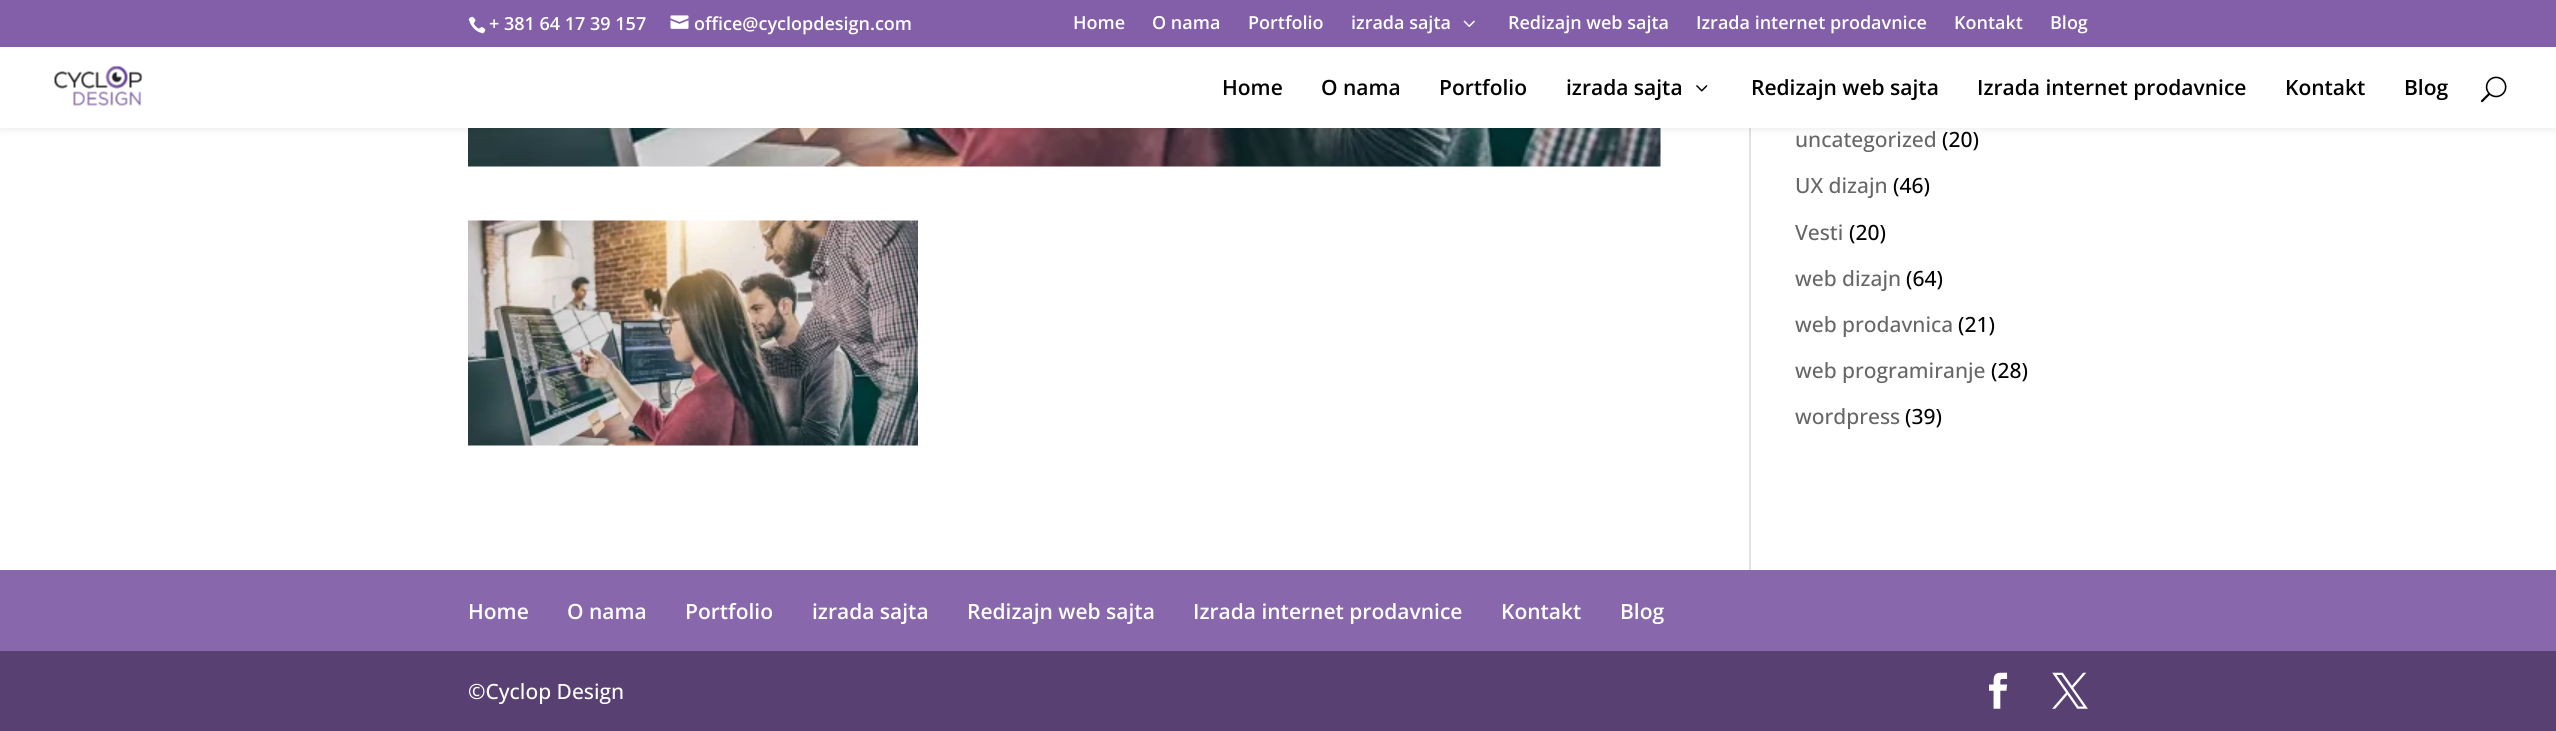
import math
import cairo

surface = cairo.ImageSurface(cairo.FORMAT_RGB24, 2556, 731)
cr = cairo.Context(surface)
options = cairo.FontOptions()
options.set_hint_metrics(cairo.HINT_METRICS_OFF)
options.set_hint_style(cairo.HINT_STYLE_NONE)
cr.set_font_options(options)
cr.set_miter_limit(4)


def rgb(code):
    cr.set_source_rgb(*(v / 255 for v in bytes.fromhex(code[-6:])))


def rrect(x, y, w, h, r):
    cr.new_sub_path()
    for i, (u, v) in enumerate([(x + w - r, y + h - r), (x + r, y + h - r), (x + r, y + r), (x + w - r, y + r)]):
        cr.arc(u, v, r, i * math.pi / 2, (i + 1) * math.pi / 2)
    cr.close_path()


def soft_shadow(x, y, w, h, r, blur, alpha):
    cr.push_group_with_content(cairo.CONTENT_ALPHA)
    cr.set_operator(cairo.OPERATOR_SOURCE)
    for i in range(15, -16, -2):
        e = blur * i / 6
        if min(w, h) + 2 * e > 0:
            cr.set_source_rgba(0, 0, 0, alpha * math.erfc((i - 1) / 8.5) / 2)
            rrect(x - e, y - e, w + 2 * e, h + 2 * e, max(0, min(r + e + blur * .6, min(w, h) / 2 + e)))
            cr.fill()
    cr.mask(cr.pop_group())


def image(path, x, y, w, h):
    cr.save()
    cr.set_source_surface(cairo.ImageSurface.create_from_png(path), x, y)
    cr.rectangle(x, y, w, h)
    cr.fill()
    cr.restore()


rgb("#ffffff")
cr.paint()
rgb("#e2e2e2")
cr.rectangle(1749, 128, 2, 442)
cr.fill()
image("img/7.png", 468, 128, 1193, 39)
rgb("#000000")
soft_shadow(0, 47, 2556, 81, 0, 5, 0.1)
rgb("#825fa8")
cr.rectangle(0, 0, 2556, 47)
cr.fill()
image("img/1.png", 468, 16, 18, 18)
image("img/2.png", 670, 15, 19, 14)
image("img/3.png", 1463, 20, 12, 7)
rgb("#ffffff")
cr.rectangle(0, 47, 2556, 81)
cr.fill()
image("img/4.png", 54, 65, 89, 41)
image("img/5.png", 1696, 85, 12, 7)
image("img/6.png", 2480, 76, 27, 27)
image("img/8.png", 468, 220, 450, 226)
rgb("#8867ac")
cr.rectangle(0, 570, 2556, 81)
cr.fill()
rgb("#584172")
cr.rectangle(0, 651, 2556, 80)
cr.fill()
image("img/9.png", 1989, 672, 19, 37)
image("img/10.png", 2052, 672, 36, 37)
cr.select_font_face("Open Sans SemiBold")
cr.set_font_size(18)
rgb("#ffffff")
for x, y, s in [
    (489, 30, "+ 381 64 17 39 157"),
    (694, 30, "office@cyclopdesign.com"),
    (1073, 29, "Home"),
    (1152, 29, "O nama"),
    (1248, 29, "Portfolio"),
    (1351, 29, "izrada sajta"),
    (1508, 29, "Redizajn web sajta"),
    (1696, 29, "Izrada internet prodavnice"),
    (1954, 29, "Kontakt"),
    (2050, 29, "Blog"),
]:
    cr.move_to(x, y)
    cr.show_text(s)
cr.set_font_size(21)
rgb("#000000")
for x, y, s in [
    (1222, 95, "Home"),
    (1321, 95, "O nama"),
    (1439, 95, "Portfolio"),
    (1566, 95, "izrada sajta"),
    (1751, 95, "Redizajn web sajta"),
    (1977, 95, "Izrada internet prodavnice"),
    (2285, 95, "Kontakt"),
    (2404, 95, "Blog"),
]:
    cr.move_to(x, y)
    cr.show_text(s)
cr.select_font_face("Open Sans Medium")
rgb("#666666")
cr.move_to(1795, 147)
cr.show_text("uncategorized")
rgb("#000000")
cr.move_to(1942, 147)
cr.show_text("(20)")
rgb("#666666")
cr.move_to(1795, 193)
cr.show_text("UX dizajn")
rgb("#000000")
cr.move_to(1893, 193)
cr.show_text("(46)")
rgb("#666666")
cr.move_to(1795, 240)
cr.show_text("Vesti")
rgb("#000000")
cr.move_to(1849, 240)
cr.show_text("(20)")
rgb("#666666")
cr.move_to(1795, 286)
cr.show_text("web dizajn")
rgb("#000000")
cr.move_to(1906, 286)
cr.show_text("(64)")
rgb("#666666")
cr.move_to(1795, 332)
cr.show_text("web prodavnica")
rgb("#000000")
cr.move_to(1958, 332)
cr.show_text("(21)")
rgb("#666666")
cr.move_to(1795, 378)
cr.show_text("web programiranje")
rgb("#000000")
cr.move_to(1991, 378)
cr.show_text("(28)")
rgb("#666666")
cr.move_to(1795, 424)
cr.show_text("wordpress")
rgb("#000000")
cr.move_to(1905, 424)
cr.show_text("(39)")
cr.select_font_face("Open Sans SemiBold")
rgb("#ffffff")
for x, y, s in [
    (468, 619, "Home"),
    (567, 619, "O nama"),
    (685, 619, "Portfolio"),
    (812, 619, "izrada sajta"),
    (967, 619, "Redizajn web sajta"),
    (1193, 619, "Izrada internet prodavnice"),
    (1501, 619, "Kontakt"),
    (1620, 619, "Blog"),
]:
    cr.move_to(x, y)
    cr.show_text(s)
cr.select_font_face("Open Sans Medium")
cr.move_to(468, 699)
cr.show_text("©Cyclop Design")
surface.write_to_png("page.png")
